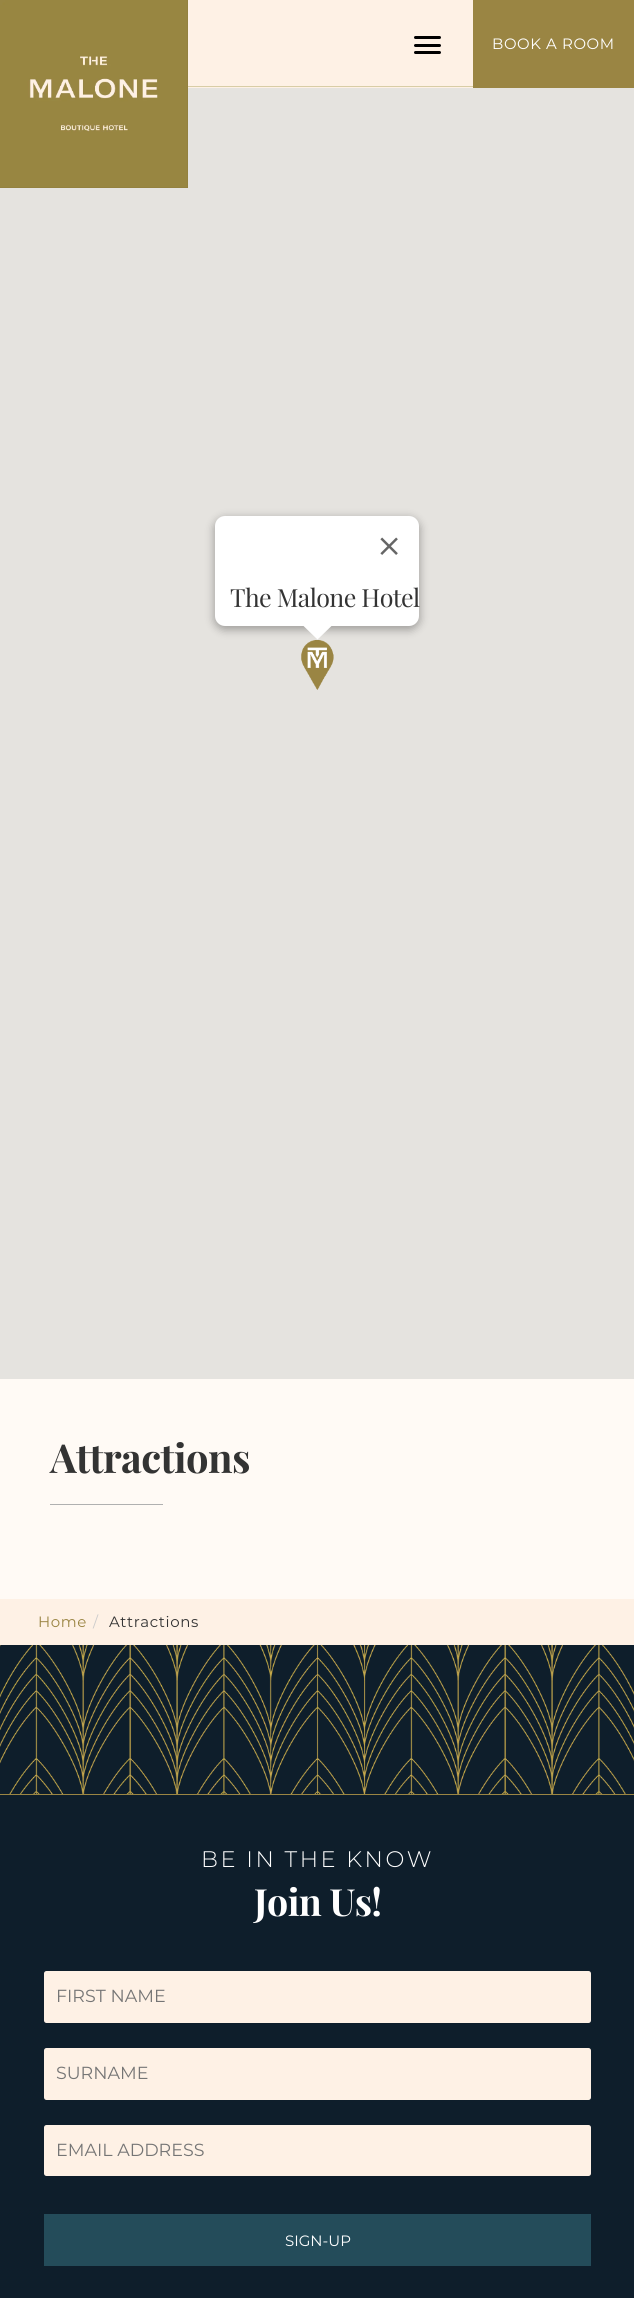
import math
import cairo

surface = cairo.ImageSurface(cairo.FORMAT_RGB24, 634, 2298)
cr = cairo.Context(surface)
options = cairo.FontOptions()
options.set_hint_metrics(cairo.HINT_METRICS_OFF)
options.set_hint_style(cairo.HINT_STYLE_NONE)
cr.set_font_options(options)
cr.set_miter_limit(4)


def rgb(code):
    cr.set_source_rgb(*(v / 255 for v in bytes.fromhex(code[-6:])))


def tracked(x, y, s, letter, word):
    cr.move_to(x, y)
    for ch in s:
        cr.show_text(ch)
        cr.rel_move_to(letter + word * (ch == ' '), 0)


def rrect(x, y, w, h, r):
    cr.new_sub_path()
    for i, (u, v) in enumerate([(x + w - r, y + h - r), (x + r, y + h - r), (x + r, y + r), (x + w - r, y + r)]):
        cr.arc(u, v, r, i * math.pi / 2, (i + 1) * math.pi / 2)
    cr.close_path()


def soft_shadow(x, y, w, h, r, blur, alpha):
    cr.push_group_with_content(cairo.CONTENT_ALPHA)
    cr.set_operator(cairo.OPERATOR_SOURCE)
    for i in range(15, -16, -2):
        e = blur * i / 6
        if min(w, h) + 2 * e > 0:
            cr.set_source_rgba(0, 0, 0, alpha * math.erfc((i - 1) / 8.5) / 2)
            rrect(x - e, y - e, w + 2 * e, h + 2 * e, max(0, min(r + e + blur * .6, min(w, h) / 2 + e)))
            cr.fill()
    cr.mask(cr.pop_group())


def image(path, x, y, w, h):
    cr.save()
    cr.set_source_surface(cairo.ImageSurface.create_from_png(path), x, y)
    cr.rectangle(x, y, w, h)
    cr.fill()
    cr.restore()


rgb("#fffaf5")
cr.paint()
for x, y, w, h, color in [
    (188, 0, 285, 88, "#fef1e5"),
    (188, 86, 285, 1, "#d8cda6"),
    (0, 88, 634, 1291, "#e5e3df"),
    (0, 0, 188, 188, "#8f7c3e"),
]:
    rgb(color)
    cr.rectangle(x, y, w, h)
    cr.fill()
image("img/1.png", 0, 0, 188, 188)
rgb("#000000")
rrect(414, 36, 27, 3, 1.5)
cr.fill()
rrect(414, 44, 27, 3, 1.5)
cr.fill()
rrect(414, 51, 27, 3, 1.5)
cr.fill()
rgb("#9a8543")
cr.rectangle(473, 0, 161, 88)
cr.fill()
image("img/3.png", 301, 640, 33, 50)
rgb("#000000")
soft_shadow(214, 518, 206, 112, 11, 4.5, 0.3)
rgb("#ffffff")
rrect(215, 516, 204, 110, 10)
cr.fill()
image("img/2.png", 380, 537, 18, 18)
cr.new_path()
cr.move_to(303, 625)
cr.line_to(303, 625.5)
cr.line_to(317.5, 639.5)
cr.line_to(332.5, 625)
cr.close_path()
cr.fill()
for x, y, w, h, color in [
    (50, 1504, 113, 1, "#b0b0b0"),
    (0, 1599, 634, 46, "#fef1e5"),
    (0, 1645, 634, 653, "#0e1e2b"),
]:
    rgb(color)
    cr.rectangle(x, y, w, h)
    cr.fill()
image("img/4.png", 0, 1645, 634, 149)
rgb("#9a8543")
cr.rectangle(0, 1794, 634, 1)
cr.fill()
rgb("#fef1e5")
rrect(44, 1971, 547, 52, 2.5)
cr.fill()
rrect(44, 2048, 547, 52, 2.5)
cr.fill()
rrect(44, 2125, 547, 51, 2.5)
cr.fill()
rgb("#244c5a")
cr.rectangle(44, 2214, 547, 52)
cr.fill()
cr.select_font_face("Montserrat")
cr.set_font_size(15)
rgb("#ffffff")
tracked(492, 49, "BOOK A ROOM", 0.6, 0)
cr.select_font_face("Playfair Display")
cr.set_font_size(25)
rgb("#333333")
tracked(230, 607, "The Malone Hotel", -0.6, 0)
cr.select_font_face("Playfair Display", cairo.FONT_SLANT_NORMAL, cairo.FONT_WEIGHT_BOLD)
cr.set_font_size(40)
tracked(50, 1473, "Attractions", -0.6, 0)
cr.select_font_face("Montserrat")
cr.set_font_size(15)
rgb("#9a8543")
tracked(38, 1627, "Home", 0.6, 0)
rgb("#cccccc")
tracked(93, 1627, "/", 0.6, 0)
rgb("#333333")
tracked(109, 1627, "Attractions", 0.6, 0)
cr.select_font_face("Montserrat Light")
cr.set_font_size(22.5)
rgb("#ffffff")
tracked(201, 1867, "BE IN THE KNOW", 2.5, 0)
cr.select_font_face("Playfair Display", cairo.FONT_SLANT_NORMAL, cairo.FONT_WEIGHT_BOLD)
cr.set_font_size(37.5)
tracked(254, 1916, "Join Us!", -0.6, 0)
cr.select_font_face("Montserrat")
cr.set_font_size(17.5)
rgb("#757575")
for x, y, s in [
    (56, 2002, "FIRST NAME"),
    (56, 2079, "SURNAME"),
    (56, 2156, "EMAIL ADDRESS"),
]:
    cr.move_to(x, y)
    cr.show_text(s)
cr.set_font_size(15)
rgb("#ffffff")
cr.move_to(285, 2246)
cr.show_text("SIGN-UP")
surface.write_to_png("page.png")
